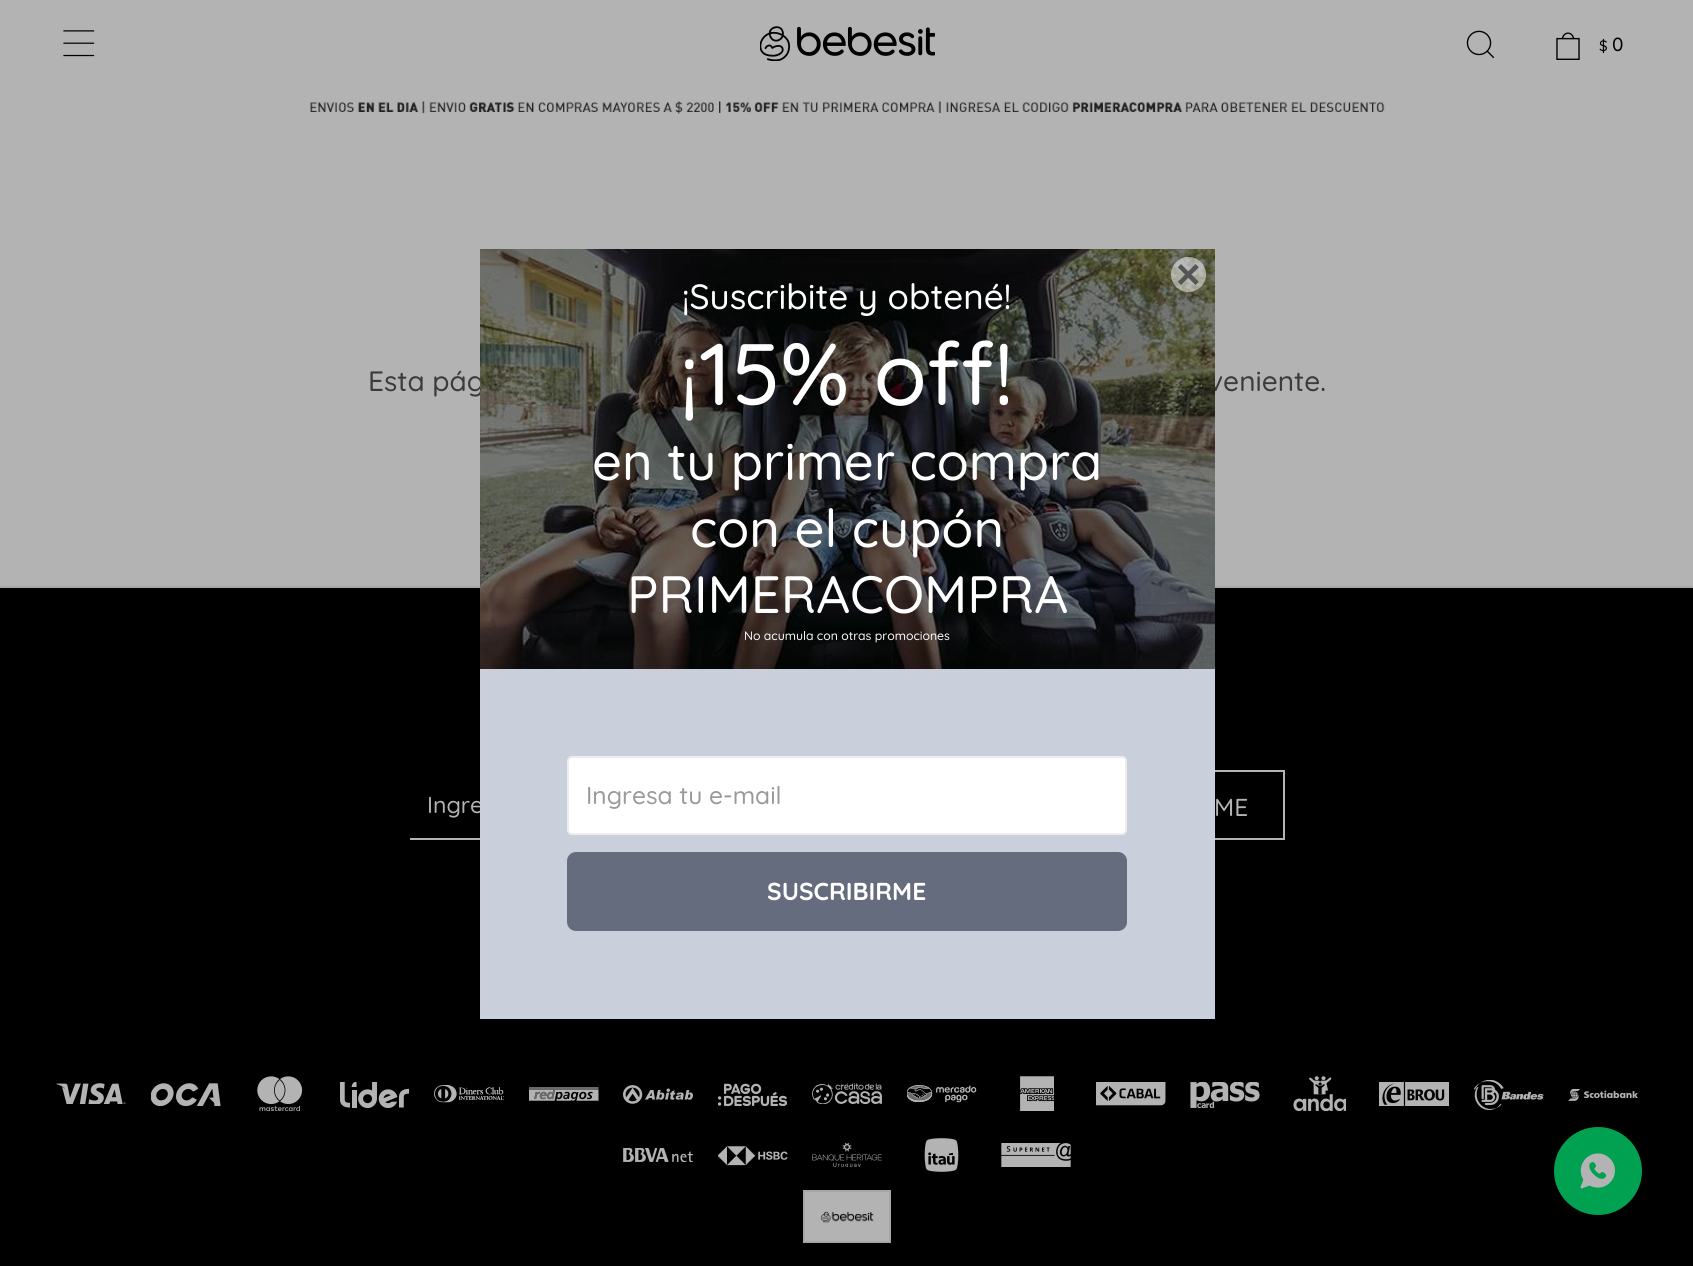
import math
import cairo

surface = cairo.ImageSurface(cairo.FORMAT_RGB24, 1693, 1266)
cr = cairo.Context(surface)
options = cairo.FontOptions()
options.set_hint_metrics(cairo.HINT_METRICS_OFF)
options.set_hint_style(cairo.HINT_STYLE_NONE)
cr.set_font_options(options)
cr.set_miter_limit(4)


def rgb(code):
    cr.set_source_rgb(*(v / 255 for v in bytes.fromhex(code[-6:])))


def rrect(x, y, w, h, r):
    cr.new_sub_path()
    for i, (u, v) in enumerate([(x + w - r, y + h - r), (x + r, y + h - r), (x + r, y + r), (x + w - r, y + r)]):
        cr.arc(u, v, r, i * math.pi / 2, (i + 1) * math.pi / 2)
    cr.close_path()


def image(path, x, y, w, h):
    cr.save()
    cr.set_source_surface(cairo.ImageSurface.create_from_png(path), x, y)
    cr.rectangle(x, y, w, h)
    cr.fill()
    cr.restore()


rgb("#b3b3b3")
cr.paint()
image("img/1.png", 63, 30, 32, 27)
image("img/2.png", 760, 26, 175, 35)
image("img/3.png", 1466, 30, 29, 29)
image("img/4.png", 1556, 32, 24, 28)
image("img/5.png", 310, 101, 1075, 13)
for x, y, w, h, color in [
    (0, 588, 1693, 678, "#000000"),
    (0, 586, 1693, 2, "#a6a6a6"),
    (410, 838, 70, 2, "#b3b3b3"),
]:
    rgb(color)
    cr.rectangle(x, y, w, h)
    cr.fill()
cr.rectangle(1055, 771, 229, 68)
cr.stroke()
image("img/6.png", 56, 1083, 70, 21)
image("img/7.png", 151, 1083, 70, 23)
image("img/8.png", 257, 1076, 46, 35)
image("img/9.png", 340, 1082, 70, 26)
image("img/10.png", 434, 1085, 70, 18)
image("img/11.png", 529, 1087, 70, 14)
image("img/12.png", 623, 1085, 70, 19)
image("img/13.png", 718, 1083, 70, 23)
image("img/14.png", 812, 1083, 70, 21)
image("img/15.png", 907, 1085, 70, 18)
image("img/16.png", 1019, 1076, 35, 35)
image("img/17.png", 1096, 1082, 70, 24)
image("img/18.png", 1190, 1082, 70, 26)
image("img/19.png", 1293, 1076, 53, 35)
image("img/20.png", 1379, 1082, 70, 24)
image("img/21.png", 1474, 1080, 70, 30)
image("img/22.png", 1568, 1089, 70, 12)
image("img/23.png", 623, 1148, 70, 14)
image("img/24.png", 718, 1146, 70, 20)
image("img/25.png", 812, 1143, 70, 24)
image("img/26.png", 924, 1138, 35, 34)
image("img/27.png", 1001, 1143, 70, 24)
cr.rectangle(804, 1191, 86, 51)
cr.fill_preserve()
rgb("#a6a6a6")
cr.stroke()
image("img/28.png", 820, 1211, 54, 12)
rgb("#01a152")
cr.arc(1598, 1171, 44, 0, 2 * math.pi)
cr.fill()
image("img/31.png", 1580, 1153, 35, 36)
cr.select_font_face("Quicksand Medium")
cr.set_font_size(15)
rgb("#000000")
cr.move_to(1599, 51)
cr.show_text("$")
cr.set_font_size(19)
cr.move_to(1612, 51)
cr.show_text("0")
cr.set_font_size(28)
rgb("#3b3b3b")
cr.move_to(368, 391)
cr.show_text("Esta pág")
cr.move_to(1208, 391)
cr.show_text("veniente.")
cr.set_font_size(23)
rgb("#b3b3b3")
cr.move_to(427, 813)
cr.show_text("Ingre")
cr.set_font_size(24.5)
cr.move_to(1214, 816)
cr.show_text("ME")
image("img/30.png", 480, 249, 735, 420)
cr.set_source_rgba(1, 1, 1, 0.5)
cr.arc(1188.5, 274.5, 17.5, 0, 2 * math.pi)
cr.fill()
image("img/29.png", 1177, 264, 22, 21)
cr.set_font_size(35)
rgb("#ffffff")
cr.move_to(682, 309)
cr.show_text("¡Suscribite y obtené!")
cr.set_font_size(87.5)
cr.move_to(680, 405)
cr.show_text("¡15% off!")
cr.set_font_size(52.5)
for x, y, s in [
    (592, 480, "en tu primer compra"),
    (690, 547, "con el cupón"),
    (627, 613, "PRIMERACOMPRA"),
]:
    cr.move_to(x, y)
    cr.show_text(s)
cr.set_font_size(12.25)
cr.move_to(744, 640)
cr.show_text("No acumula con otras promociones")
rgb("#c9d0db")
cr.rectangle(480, 669, 735, 350)
cr.fill()
rgb("#ffffff")
rrect(568, 757, 558, 77, 4)
cr.fill_preserve()
rgb("#ededed")
cr.stroke()
cr.set_font_size(24.5)
rgb("#999999")
cr.move_to(586, 804)
cr.show_text("Ingresa tu e-mail")
rgb("#656c7e")
rrect(567, 852, 560, 79, 9)
cr.fill()
cr.select_font_face("Quicksand", cairo.FONT_SLANT_NORMAL, cairo.FONT_WEIGHT_BOLD)
rgb("#ffffff")
cr.move_to(767, 900)
cr.show_text("SUSCRIBIRME")
surface.write_to_png("page.png")
